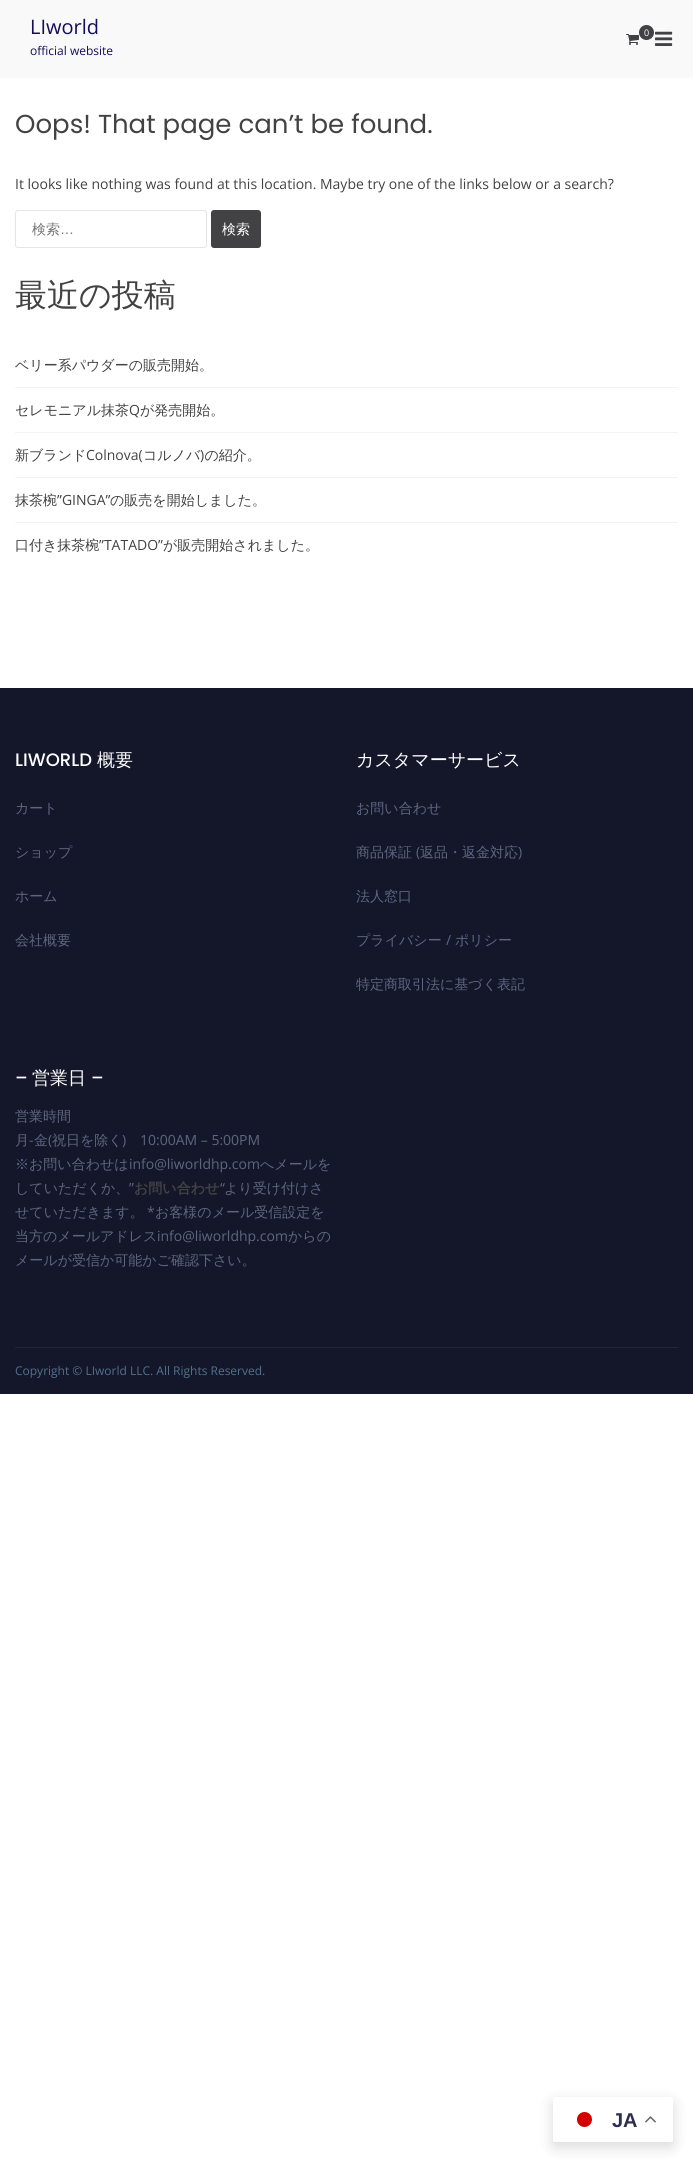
import math
import cairo

surface = cairo.ImageSurface(cairo.FORMAT_RGB24, 693, 2166)
cr = cairo.Context(surface)
options = cairo.FontOptions()
options.set_hint_metrics(cairo.HINT_METRICS_OFF)
options.set_hint_style(cairo.HINT_STYLE_NONE)
cr.set_font_options(options)
cr.set_miter_limit(4)


def rgb(code):
    cr.set_source_rgb(*(v / 255 for v in bytes.fromhex(code[-6:])))


def rrect(x, y, w, h, r):
    cr.new_sub_path()
    for i, (u, v) in enumerate([(x + w - r, y + h - r), (x + r, y + h - r), (x + r, y + r), (x + w - r, y + r)]):
        cr.arc(u, v, r, i * math.pi / 2, (i + 1) * math.pi / 2)
    cr.close_path()


def soft_shadow(x, y, w, h, r, blur, alpha):
    cr.push_group_with_content(cairo.CONTENT_ALPHA)
    cr.set_operator(cairo.OPERATOR_SOURCE)
    for i in range(15, -16, -2):
        e = blur * i / 6
        if min(w, h) + 2 * e > 0:
            cr.set_source_rgba(0, 0, 0, alpha * math.erfc((i - 1) / 8.5) / 2)
            rrect(x - e, y - e, w + 2 * e, h + 2 * e, max(0, min(r + e + blur * .6, min(w, h) / 2 + e)))
            cr.fill()
    cr.mask(cr.pop_group())


def image(path, x, y, w, h):
    cr.save()
    cr.set_source_surface(cairo.ImageSurface.create_from_png(path), x, y)
    cr.rectangle(x, y, w, h)
    cr.fill()
    cr.restore()


rgb("#ffffff")
cr.paint()
rgb("#f9f9f9")
cr.rectangle(0, 0, 693, 78)
cr.fill()
rgb("#424143")
cr.arc(646.5, 32.5, 7.5, 0, 2 * math.pi)
cr.fill()
image("img/1.png", 626, 34, 13, 11)
image("img/2.png", 655, 31, 18, 15)
rrect(15.5, 210.5, 191, 37, 2.5)
rgb("#e5e4e6")
cr.set_line_width(1)
cr.stroke()
rgb("#424143")
rrect(211, 210, 50, 38, 3)
cr.fill()
for x, y, w, h, color in [
    (15, 387, 663, 1, "#f4f3f3"),
    (15, 432, 663, 1, "#f4f3f3"),
    (15, 477, 663, 1, "#f4f3f3"),
    (15, 522, 663, 1, "#f4f3f3"),
    (0, 688, 693, 706, "#14172a"),
    (15, 1347, 663, 1, "#212538"),
]:
    rgb(color)
    cr.rectangle(x, y, w, h)
    cr.fill()
rgb("#000000")
soft_shadow(553, 2102, 120, 45, 2, 7.5, 0.15)
rgb("#ffffff")
rrect(553, 2097, 120, 45, 2)
cr.fill()
rgb("#d30000")
cr.arc(584.5, 2119.5, 7.5, 0, 2 * math.pi)
cr.fill()
image("img/3.png", 645, 2116, 11, 7)
cr.select_font_face("Open Sans")
cr.set_font_size(20)
rgb("#130e59")
cr.move_to(30, 34)
cr.show_text("LIworld")
cr.set_font_size(12)
cr.move_to(30, 55)
cr.show_text("official website")
cr.set_font_size(9)
rgb("#ffffff")
cr.move_to(644, 36)
cr.show_text("0")
cr.select_font_face("Poppins")
cr.set_font_size(26)
rgb("#424143")
cr.move_to(15, 133)
cr.show_text("Oops! That page can’t be found.")
cr.select_font_face("Open Sans")
cr.set_font_size(14)
cr.move_to(15, 189)
cr.show_text("It looks like nothing was found at this location. Maybe try one of the links below or a search?")
cr.select_font_face("WenQuanYi Zen Hei Medium")
rgb("#757575")
cr.move_to(32, 234)
cr.show_text("検索")
cr.select_font_face("Liberation Sans")
cr.move_to(60, 234)
cr.show_text("…")
cr.select_font_face("WenQuanYi Zen Hei Medium")
rgb("#ffffff")
cr.move_to(222, 234)
cr.show_text("検索")
cr.set_font_size(32)
rgb("#424143")
cr.move_to(15, 306)
cr.show_text("最近の投稿")
cr.set_font_size(14)
cr.move_to(15, 370)
cr.show_text("ベリー系パウダーの販売開始。")
cr.move_to(15, 415)
cr.show_text("セレモニアル抹茶")
cr.select_font_face("Open Sans")
cr.move_to(129, 415)
cr.show_text("Q")
cr.select_font_face("WenQuanYi Zen Hei Medium")
cr.move_to(140, 415)
cr.show_text("が発売開始。")
cr.move_to(15, 460)
cr.show_text("新ブランド")
cr.select_font_face("Open Sans")
cr.move_to(86, 460)
cr.show_text("Colnova(")
cr.select_font_face("WenQuanYi Zen Hei Medium")
cr.move_to(143, 460)
cr.show_text("コルノバ の紹介。")
cr.select_font_face("Open Sans")
cr.move_to(200, 460)
cr.show_text(")")
cr.select_font_face("WenQuanYi Zen Hei Medium")
cr.move_to(15, 505)
cr.show_text("抹茶椀")
cr.select_font_face("Open Sans")
cr.move_to(57, 505)
cr.show_text("”GINGA”")
cr.select_font_face("WenQuanYi Zen Hei Medium")
cr.move_to(110, 505)
cr.show_text("の販売を開始しました。")
cr.move_to(15, 550)
cr.show_text("口付き抹茶椀")
cr.select_font_face("Open Sans")
cr.move_to(99, 550)
cr.show_text("”TATADO”")
cr.select_font_face("WenQuanYi Zen Hei Medium")
cr.move_to(163, 550)
cr.show_text("が販売開始されました。")
cr.select_font_face("Poppins Medium")
cr.set_font_size(18)
rgb("#ffffff")
cr.move_to(15, 766)
cr.show_text("LIWORLD")
cr.select_font_face("WenQuanYi Zen Hei Medium")
cr.move_to(97, 766)
cr.show_text("概要")
cr.set_font_size(14)
rgb("#5f6581")
for x, y, s in [
    (15, 813, "カート"),
    (15, 857, "ショップ"),
    (15, 901, "ホーム"),
    (15, 945, "会社概要"),
]:
    cr.move_to(x, y)
    cr.show_text(s)
cr.set_font_size(18)
rgb("#ffffff")
cr.move_to(356, 766)
cr.show_text("カスタマーサービス")
cr.set_font_size(14)
rgb("#5f6581")
cr.move_to(356, 813)
cr.show_text("お問い合わせ")
cr.move_to(356, 857)
cr.show_text("商品保証")
cr.select_font_face("Open Sans")
cr.move_to(416, 857)
cr.show_text("(")
cr.select_font_face("WenQuanYi Zen Hei Medium")
cr.move_to(420, 857)
cr.show_text("返品・返金対応")
cr.select_font_face("Open Sans")
cr.move_to(518, 857)
cr.show_text(")")
cr.select_font_face("WenQuanYi Zen Hei Medium")
cr.move_to(356, 901)
cr.show_text("法人窓口")
cr.move_to(356, 945)
cr.show_text("プライバシー")
cr.select_font_face("Open Sans")
cr.move_to(446, 945)
cr.show_text("/")
cr.select_font_face("WenQuanYi Zen Hei Medium")
cr.move_to(455, 945)
cr.show_text("ポリシー")
cr.move_to(356, 989)
cr.show_text("特定商取引法に基づく表記")
cr.select_font_face("Poppins Medium")
cr.set_font_size(18)
rgb("#ffffff")
cr.move_to(15, 1084)
cr.show_text("–")
cr.select_font_face("WenQuanYi Zen Hei Medium")
cr.move_to(32, 1084)
cr.show_text("営業日")
cr.select_font_face("Poppins Medium")
cr.move_to(91, 1084)
cr.show_text("–")
cr.select_font_face("WenQuanYi Zen Hei Medium")
cr.set_font_size(14)
rgb("#5f6581")
cr.move_to(15, 1121)
cr.show_text("営業時間")
cr.move_to(15, 1145)
cr.show_text("月")
cr.select_font_face("Open Sans")
cr.move_to(29, 1145)
cr.show_text("-")
cr.select_font_face("WenQuanYi Zen Hei Medium")
cr.move_to(34, 1145)
cr.show_text("金")
cr.select_font_face("Open Sans")
cr.move_to(48, 1145)
cr.show_text("(")
cr.select_font_face("WenQuanYi Zen Hei Medium")
cr.move_to(52, 1145)
cr.show_text("祝日を除く")
cr.select_font_face("Open Sans")
cr.move_to(122, 1145)
cr.show_text(")")
cr.move_to(140, 1145)
cr.show_text("10:00AM – 5:00PM")
cr.select_font_face("WenQuanYi Zen Hei Medium")
cr.move_to(15, 1169)
cr.show_text("※お問い合わせは")
cr.select_font_face("Open Sans")
cr.move_to(129, 1169)
cr.show_text("info@liworldhp.com")
cr.select_font_face("WenQuanYi Zen Hei Medium")
cr.move_to(260, 1169)
cr.show_text("へメールを")
cr.move_to(15, 1193)
cr.show_text("していただくか、")
cr.select_font_face("Open Sans")
cr.move_to(129, 1193)
cr.show_text("”")
cr.select_font_face("WenQuanYi Zen Hei", cairo.FONT_SLANT_NORMAL, cairo.FONT_WEIGHT_BOLD)
rgb("#424143")
cr.move_to(134, 1193)
cr.show_text("お問い合わせ")
cr.select_font_face("Open Sans")
rgb("#5f6581")
cr.move_to(220, 1193)
cr.show_text("“")
cr.select_font_face("WenQuanYi Zen Hei Medium")
cr.move_to(224, 1193)
cr.show_text("より受け付けさ")
cr.move_to(15, 1217)
cr.show_text("せていただきます。")
cr.select_font_face("Open Sans")
cr.move_to(147, 1217)
cr.show_text("*")
cr.select_font_face("WenQuanYi Zen Hei Medium")
cr.move_to(155, 1217)
cr.show_text("お客様のメール受信設定を")
cr.move_to(15, 1241)
cr.show_text("当方のメールアドレス")
cr.select_font_face("Open Sans")
cr.move_to(157, 1241)
cr.show_text("info@liworldhp.com")
cr.select_font_face("WenQuanYi Zen Hei Medium")
cr.move_to(288, 1241)
cr.show_text("からの")
cr.move_to(15, 1265)
cr.show_text("メールが受信か可能かご確認下さい。")
cr.select_font_face("Open Sans")
cr.set_font_size(12)
rgb("#516f8e")
cr.move_to(15, 1375)
cr.show_text("Copyright © LIworld LLC. All Rights Reserved.")
cr.select_font_face("Liberation Sans", cairo.FONT_SLANT_NORMAL, cairo.FONT_WEIGHT_BOLD)
cr.set_font_size(20)
rgb("#2d2e4f")
cr.move_to(612, 2127)
cr.show_text("JA")
surface.write_to_png("page.png")
